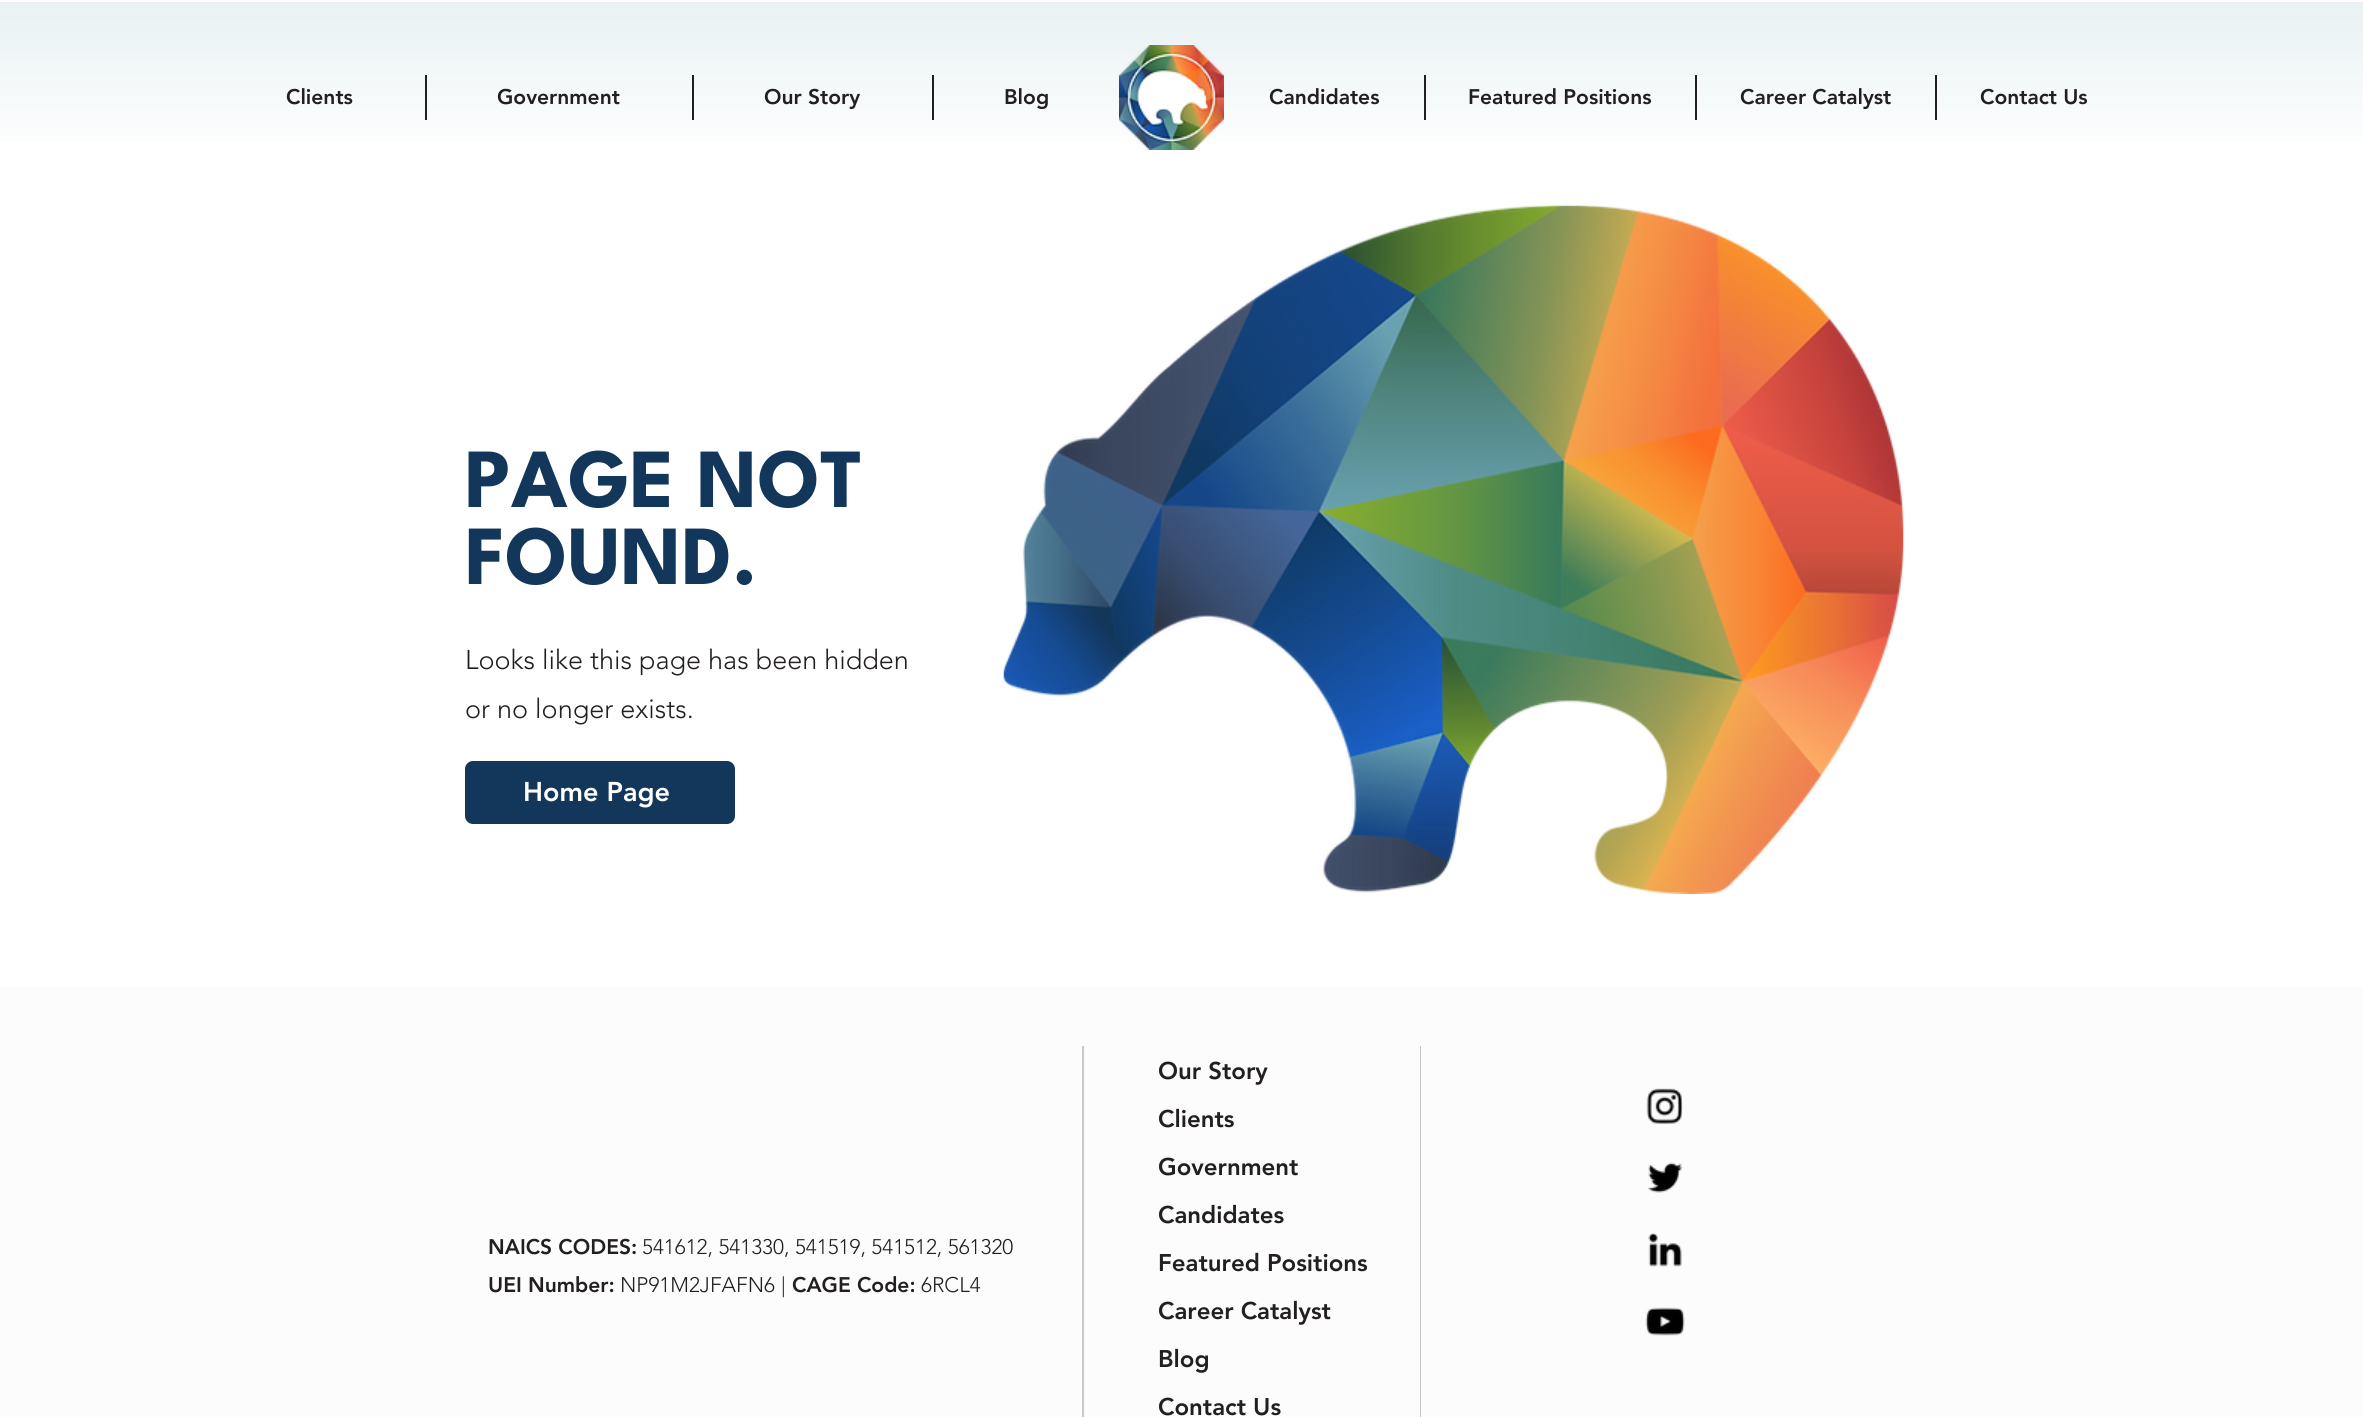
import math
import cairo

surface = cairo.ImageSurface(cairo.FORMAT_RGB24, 2363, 1417)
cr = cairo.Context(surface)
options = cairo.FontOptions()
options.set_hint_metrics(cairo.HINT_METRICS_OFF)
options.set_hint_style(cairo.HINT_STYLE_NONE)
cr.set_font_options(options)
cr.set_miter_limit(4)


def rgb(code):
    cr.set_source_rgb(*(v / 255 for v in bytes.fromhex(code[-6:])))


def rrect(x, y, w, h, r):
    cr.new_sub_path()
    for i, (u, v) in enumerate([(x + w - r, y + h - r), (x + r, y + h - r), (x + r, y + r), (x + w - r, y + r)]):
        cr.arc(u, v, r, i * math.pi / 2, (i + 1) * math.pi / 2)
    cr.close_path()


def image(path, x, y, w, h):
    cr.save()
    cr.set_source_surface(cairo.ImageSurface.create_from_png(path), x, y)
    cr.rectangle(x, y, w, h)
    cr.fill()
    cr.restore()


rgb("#ffffff")
cr.paint()
gradient = cairo.LinearGradient(1182, 1.5, 1182, 159)
gradient.add_color_stop_rgba(0, 0.91, 0.945, 0.953, 1)
gradient.add_color_stop_rgba(1, 1, 1, 1, 1)
cr.set_source(gradient)
cr.rectangle(0, 2, 2363, 140)
cr.fill()
for x, y, w, h, color in [
    (425, 75, 2, 45, "#231f20"),
    (692, 75, 2, 45, "#231f20"),
    (932, 75, 2, 45, "#231f20"),
]:
    rgb(color)
    cr.rectangle(x, y, w, h)
    cr.fill()
image("img/1.png", 1119, 45, 105, 105)
for x, y, w, h, color in [
    (1424, 75, 2, 45, "#231f20"),
    (1695, 75, 2, 45, "#231f20"),
    (1935, 75, 2, 45, "#231f20"),
]:
    rgb(color)
    cr.rectangle(x, y, w, h)
    cr.fill()
image("img/2.png", 1003, 205, 901, 689)
rgb("#13375b")
rrect(465, 761, 270, 63, 8)
cr.fill()
for x, y, w, h, color in [
    (0, 987, 2363, 430, "#fcfcfc"),
    (1082, 1046, 2, 371, "#c8c7c7"),
    (1420, 1046, 1, 371, "#c8c7c7"),
]:
    rgb(color)
    cr.rectangle(x, y, w, h)
    cr.fill()
image("img/3.png", 1646, 1088, 37, 36)
image("img/4.png", 1648, 1162, 35, 31)
image("img/5.png", 1648, 1232, 34, 35)
image("img/6.png", 1645, 1307, 40, 29)
cr.select_font_face("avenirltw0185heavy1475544 Black")
cr.set_font_size(21)
rgb("#231f20")
for x, y, s in [
    (286, 104, "Clients"),
    (497, 104, "Government"),
    (764, 104, "Our Story"),
    (1004, 104, "Blog"),
    (1269, 104, "Candidates"),
    (1468, 104, "Featured Positions"),
    (1740, 104, "Career Catalyst"),
    (1980, 104, "Contact Us"),
]:
    cr.move_to(x, y)
    cr.show_text(s)
cr.select_font_face("League Spartan", cairo.FONT_SLANT_NORMAL, cairo.FONT_WEIGHT_BOLD)
cr.set_font_size(84)
rgb("#13365b")
cr.move_to(465, 507)
cr.show_text("PAGE NOT")
cr.move_to(465, 584)
cr.show_text("FOUND.")
cr.select_font_face("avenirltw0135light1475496 Light")
cr.set_font_size(27)
rgb("#231f20")
cr.move_to(465, 669)
cr.show_text("Looks like this page has been hidden")
cr.move_to(465, 718)
cr.show_text("or no longer exists.")
cr.select_font_face("avenirltw0185heavy1475544 Black")
rgb("#ffffff")
cr.move_to(523, 801)
cr.show_text("Home Page")
cr.set_font_size(21)
rgb("#231f20")
cr.move_to(488, 1254)
cr.show_text("NAICS CODES:")
cr.select_font_face("avenirltw0135light1475496 Light")
cr.move_to(642, 1254)
cr.show_text("541612, 541330, 541519, 541512, 561320")
cr.select_font_face("avenirltw0185heavy1475544 Black")
cr.move_to(488, 1292)
cr.show_text("UEI Number:")
cr.select_font_face("avenirltw0135light1475496 Light")
cr.move_to(620, 1292)
cr.show_text("NP91M2JFAFN6")
cr.move_to(781, 1292)
cr.show_text("|")
cr.select_font_face("avenirltw0185heavy1475544 Black")
cr.move_to(792, 1292)
cr.show_text("CAGE Code:")
cr.select_font_face("avenirltw0135light1475496 Light")
cr.move_to(921, 1292)
cr.show_text("6RCL4")
cr.select_font_face("avenirltw0185heavy1475544 Black")
cr.set_font_size(24)
for x, y, s in [
    (1158, 1079, "Our Story"),
    (1158, 1127, "Clients"),
    (1158, 1175, "Government"),
    (1158, 1223, "Candidates"),
    (1158, 1271, "Featured Positions"),
    (1158, 1319, "Career Catalyst"),
    (1158, 1367, "Blog"),
    (1158, 1415, "Contact Us"),
]:
    cr.move_to(x, y)
    cr.show_text(s)
surface.write_to_png("page.png")
